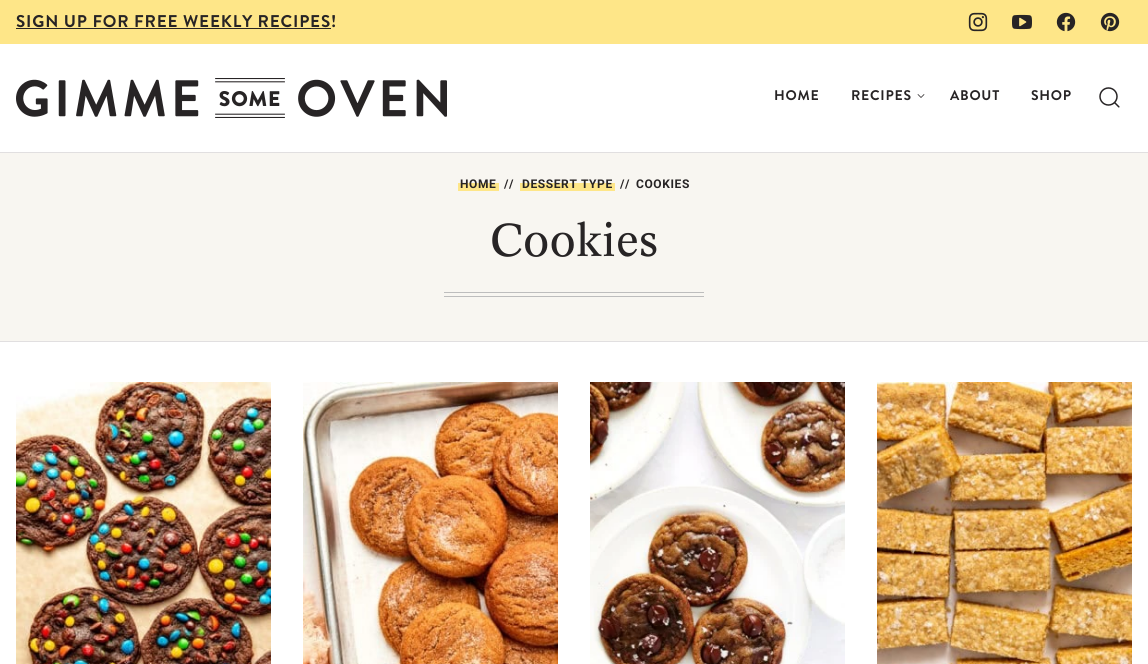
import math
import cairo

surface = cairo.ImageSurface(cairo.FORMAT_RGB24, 1148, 664)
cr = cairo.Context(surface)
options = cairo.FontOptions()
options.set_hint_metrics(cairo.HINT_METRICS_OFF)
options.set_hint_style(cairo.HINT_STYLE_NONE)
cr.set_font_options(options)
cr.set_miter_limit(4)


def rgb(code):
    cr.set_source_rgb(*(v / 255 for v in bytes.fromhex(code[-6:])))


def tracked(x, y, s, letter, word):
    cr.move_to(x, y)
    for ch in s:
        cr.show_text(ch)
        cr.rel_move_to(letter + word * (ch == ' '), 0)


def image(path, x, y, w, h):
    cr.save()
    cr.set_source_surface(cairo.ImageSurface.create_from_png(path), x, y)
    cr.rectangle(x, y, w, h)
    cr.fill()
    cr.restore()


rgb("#ffffff")
cr.paint()
rgb("#fee688")
cr.rectangle(0, 0, 1148, 44)
cr.fill()
rgb("#272425")
cr.rectangle(16, 28, 315, 1)
cr.fill()
image("img/1.png", 968, 12, 20, 20)
image("img/2.png", 1012, 14, 20, 16)
image("img/3.png", 1056, 12, 20, 20)
image("img/4.png", 1100, 12, 20, 20)
rgb("#e1dfe0")
cr.rectangle(0, 152, 1148, 1)
cr.fill()
image("img/5.png", 16, 78, 431, 40)
image("img/6.png", 917, 94, 8, 4)
image("img/7.png", 1099, 87, 21, 21)
for x, y, w, h, color in [
    (0, 153, 1148, 188, "#f8f6f1"),
    (0, 341, 1148, 1, "#e1dfe0"),
    (458, 183, 41, 8, "#fee688"),
    (520, 183, 95, 8, "#fee688"),
    (444, 292, 260, 1, "#bdbdbd"),
    (444, 296, 260, 1, "#bdbdbd"),
]:
    rgb(color)
    cr.rectangle(x, y, w, h)
    cr.fill()
image("img/8.png", 16, 382, 255, 282)
image("img/9.png", 303, 382, 255, 282)
image("img/10.png", 590, 382, 255, 282)
image("img/11.png", 877, 382, 255, 282)
cr.select_font_face("Brandon Grotesque", cairo.FONT_SLANT_NORMAL, cairo.FONT_WEIGHT_BOLD)
cr.set_font_size(17)
rgb("#272425")
tracked(16, 27, "SIGN UP FOR FREE WEEKLY RECIPES!", 0.85, 0)
cr.set_font_size(14)
for x, y, s in [
    (774, 100, "HOME"),
    (851, 100, "RECIPES"),
    (950, 100, "ABOUT"),
    (1031, 100, "SHOP"),
]:
    tracked(x, y, s, 0.75, 0)
cr.select_font_face("Roboto", cairo.FONT_SLANT_NORMAL, cairo.FONT_WEIGHT_BOLD)
cr.set_font_size(12)
for x, y, s in [
    (460, 188, "HOME"),
    (504, 188, "//"),
    (522, 188, "DESSERT TYPE"),
    (620, 188, "//"),
    (636, 188, "COOKIES"),
]:
    tracked(x, y, s, 0.6, 0)
cr.select_font_face("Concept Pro")
cr.set_font_size(48)
cr.move_to(490, 256)
cr.show_text("Cookies")
surface.write_to_png("page.png")
